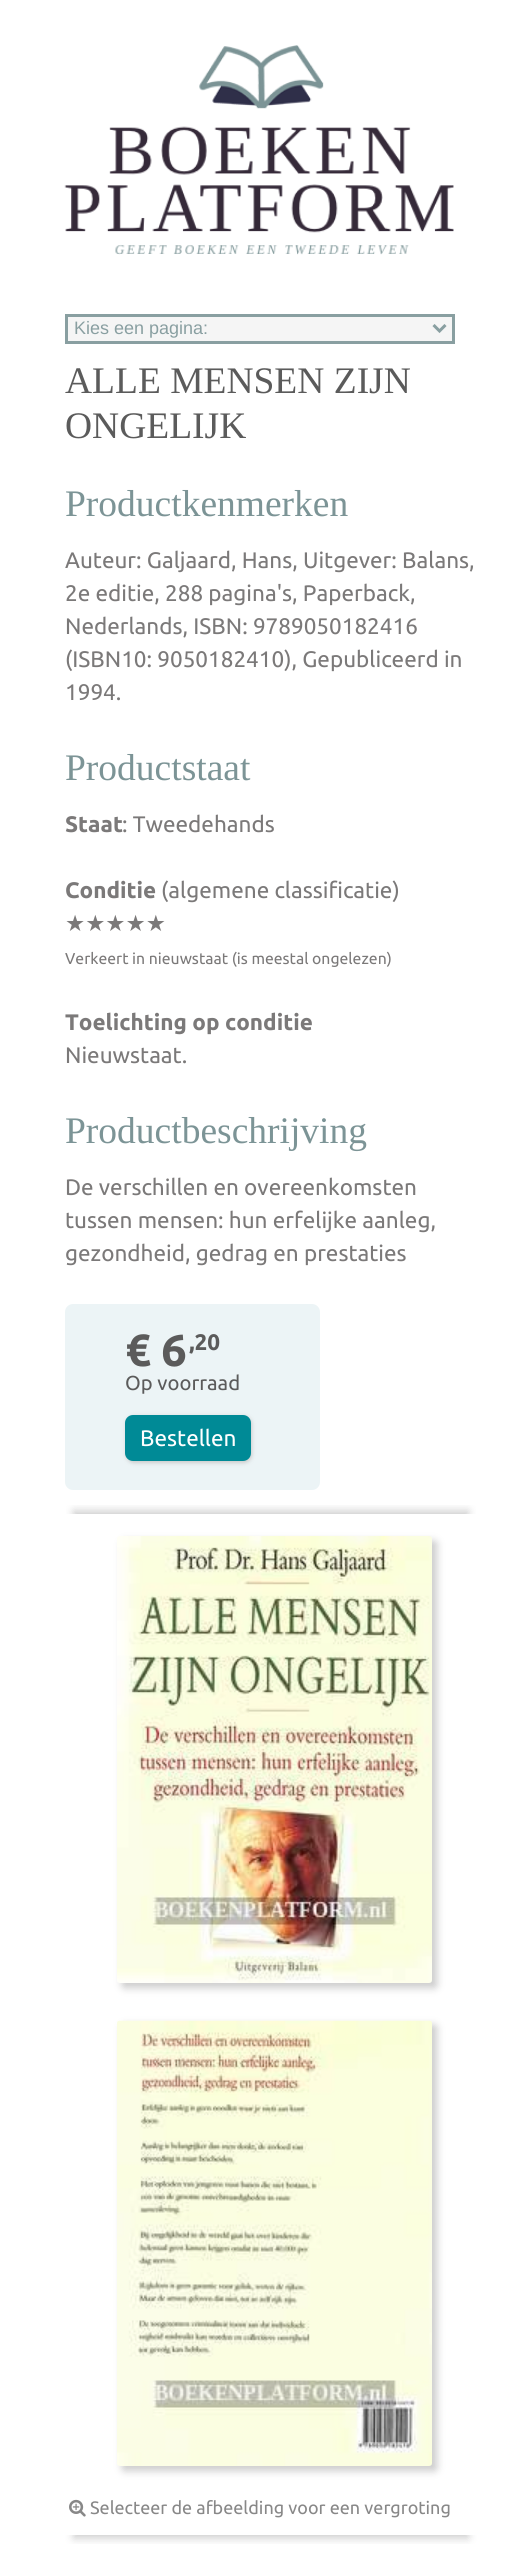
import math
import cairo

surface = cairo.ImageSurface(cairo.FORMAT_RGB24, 518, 2552)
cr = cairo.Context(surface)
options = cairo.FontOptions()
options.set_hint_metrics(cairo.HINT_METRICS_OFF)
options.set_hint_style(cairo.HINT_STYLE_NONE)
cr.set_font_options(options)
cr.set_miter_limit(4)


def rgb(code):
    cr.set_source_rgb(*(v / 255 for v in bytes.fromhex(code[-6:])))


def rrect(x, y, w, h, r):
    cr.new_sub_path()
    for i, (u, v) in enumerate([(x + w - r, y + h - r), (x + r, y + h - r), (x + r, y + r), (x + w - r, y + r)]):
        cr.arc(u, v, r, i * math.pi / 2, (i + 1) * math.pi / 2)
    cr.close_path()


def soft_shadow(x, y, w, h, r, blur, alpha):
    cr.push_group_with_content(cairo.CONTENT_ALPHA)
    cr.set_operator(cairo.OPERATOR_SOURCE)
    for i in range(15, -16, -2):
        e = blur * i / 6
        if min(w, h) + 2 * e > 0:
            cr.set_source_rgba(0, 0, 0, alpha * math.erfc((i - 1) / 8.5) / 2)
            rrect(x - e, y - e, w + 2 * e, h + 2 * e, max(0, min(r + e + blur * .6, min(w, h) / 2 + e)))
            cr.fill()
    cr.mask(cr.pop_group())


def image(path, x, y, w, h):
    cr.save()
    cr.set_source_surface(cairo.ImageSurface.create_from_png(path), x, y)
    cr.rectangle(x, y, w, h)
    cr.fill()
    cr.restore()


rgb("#ffffff")
cr.paint()
image("img/1.png", 64, 45, 390, 210)
rgb("#f5f5f5")
cr.rectangle(66.5, 315.5, 387, 27)
cr.fill_preserve()
rgb("#899fa1")
cr.set_line_width(3)
cr.stroke()
cr.new_path()
cr.move_to(433.5, 325)
cr.line_to(439.5, 331)
cr.line_to(445.5, 325)
cr.stroke()
rgb("#ecf4f6")
rrect(65, 1304, 255, 186, 8)
cr.fill()
rgb("#cccccc")
soft_shadow(126, 1416, 126, 47, 8, 2, 1)
rgb("#008a96")
rrect(125, 1415, 126, 46, 8)
cr.fill()
cr.save()
cr.rectangle(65, 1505, 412, 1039)
cr.clip()
cr.rectangle(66, 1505, 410, 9)
cr.clip()
rgb("#cccccc")
soft_shadow(74, 1511, 394, 1003, 0, 4.5, 1)
cr.restore()
cr.save()
cr.rectangle(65, 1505, 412, 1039)
cr.clip()
cr.rectangle(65, 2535, 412, 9)
cr.clip()
rgb("#cccccc")
soft_shadow(74, 1535, 394, 1003, 0, 4.5, 1)
cr.restore()
rgb("#cccccc")
soft_shadow(122, 1541, 315, 447, 3, 4, 1)
image("img/2.png", 117, 1536, 315, 447)
soft_shadow(122, 2025, 315, 446, 3, 4, 1)
image("img/3.png", 117, 2020, 315, 446)
image("img/4.png", 69, 2499, 17, 18)
cr.select_font_face("Liberation Sans")
cr.set_font_size(18)
rgb("#899fa1")
cr.move_to(74, 334)
cr.show_text("Kies een pagina:")
cr.select_font_face("Tinos")
cr.set_font_size(37.5)
rgb("#5b5b5b")
cr.move_to(65, 393)
cr.show_text("ALLE MENSEN ZIJN")
cr.move_to(65, 438)
cr.show_text("ONGELIJK")
rgb("#7c9496")
cr.move_to(65, 516)
cr.show_text("Productkenmerken")
cr.select_font_face("Ubuntu")
cr.set_font_size(22.5)
rgb("#7b7979")
for x, y, s in [
    (65, 568, "Auteur: Galjaard, Hans, Uitgever: Balans,"),
    (65, 601, "2e editie, 288 pagina's, Paperback,"),
    (65, 634, "Nederlands, ISBN: 9789050182416"),
    (65, 667, "(ISBN10: 9050182410), Gepubliceerd in"),
    (65, 700, "1994."),
]:
    cr.move_to(x, y)
    cr.show_text(s)
cr.select_font_face("Tinos")
cr.set_font_size(37.5)
rgb("#7c9496")
cr.move_to(65, 780)
cr.show_text("Productstaat")
cr.select_font_face("Ubuntu", cairo.FONT_SLANT_NORMAL, cairo.FONT_WEIGHT_BOLD)
cr.set_font_size(22.5)
rgb("#7b7979")
cr.move_to(65, 832)
cr.show_text("Staat")
cr.select_font_face("Ubuntu")
cr.move_to(122, 832)
cr.show_text(": Tweedehands")
cr.select_font_face("Ubuntu", cairo.FONT_SLANT_NORMAL, cairo.FONT_WEIGHT_BOLD)
cr.move_to(65, 898)
cr.show_text("Conditie")
cr.select_font_face("Ubuntu")
cr.move_to(161, 898)
cr.show_text("(algemene classificatie)")
cr.select_font_face("DejaVu Sans")
cr.move_to(65, 931)
cr.show_text("★★★★★")
cr.select_font_face("Ubuntu")
cr.set_font_size(15.75)
cr.move_to(65, 964)
cr.show_text("Verkeert in nieuwstaat (is meestal ongelezen)")
cr.select_font_face("Ubuntu", cairo.FONT_SLANT_NORMAL, cairo.FONT_WEIGHT_BOLD)
cr.set_font_size(22.5)
cr.move_to(65, 1030)
cr.show_text("Toelichting op conditie")
cr.select_font_face("Ubuntu")
cr.move_to(65, 1063)
cr.show_text("Nieuwstaat.")
cr.select_font_face("Tinos")
cr.set_font_size(37.5)
rgb("#7c9496")
cr.move_to(65, 1143)
cr.show_text("Productbeschrijving")
cr.select_font_face("Ubuntu")
cr.set_font_size(22.5)
rgb("#7b7979")
for x, y, s in [
    (65, 1195, "De verschillen en overeenkomsten"),
    (65, 1228, "tussen mensen: hun erfelijke aanleg,"),
    (65, 1261, "gezondheid, gedrag en prestaties"),
]:
    cr.move_to(x, y)
    cr.show_text(s)
cr.select_font_face("Ubuntu", cairo.FONT_SLANT_NORMAL, cairo.FONT_WEIGHT_BOLD)
cr.set_font_size(45)
rgb("#5b5b5b")
cr.move_to(125, 1366)
cr.show_text("€ 6")
cr.set_font_size(22.5)
cr.move_to(189, 1350)
cr.show_text(",20")
cr.select_font_face("Ubuntu")
cr.set_font_size(20.25)
cr.move_to(125, 1390)
cr.show_text("Op voorraad")
cr.set_font_size(22.5)
rgb("#ffffff")
cr.move_to(140, 1446)
cr.show_text("Bestellen")
cr.set_font_size(18)
rgb("#888888")
cr.move_to(90, 2514)
cr.show_text("Selecteer de afbeelding voor een vergroting")
surface.write_to_png("page.png")
